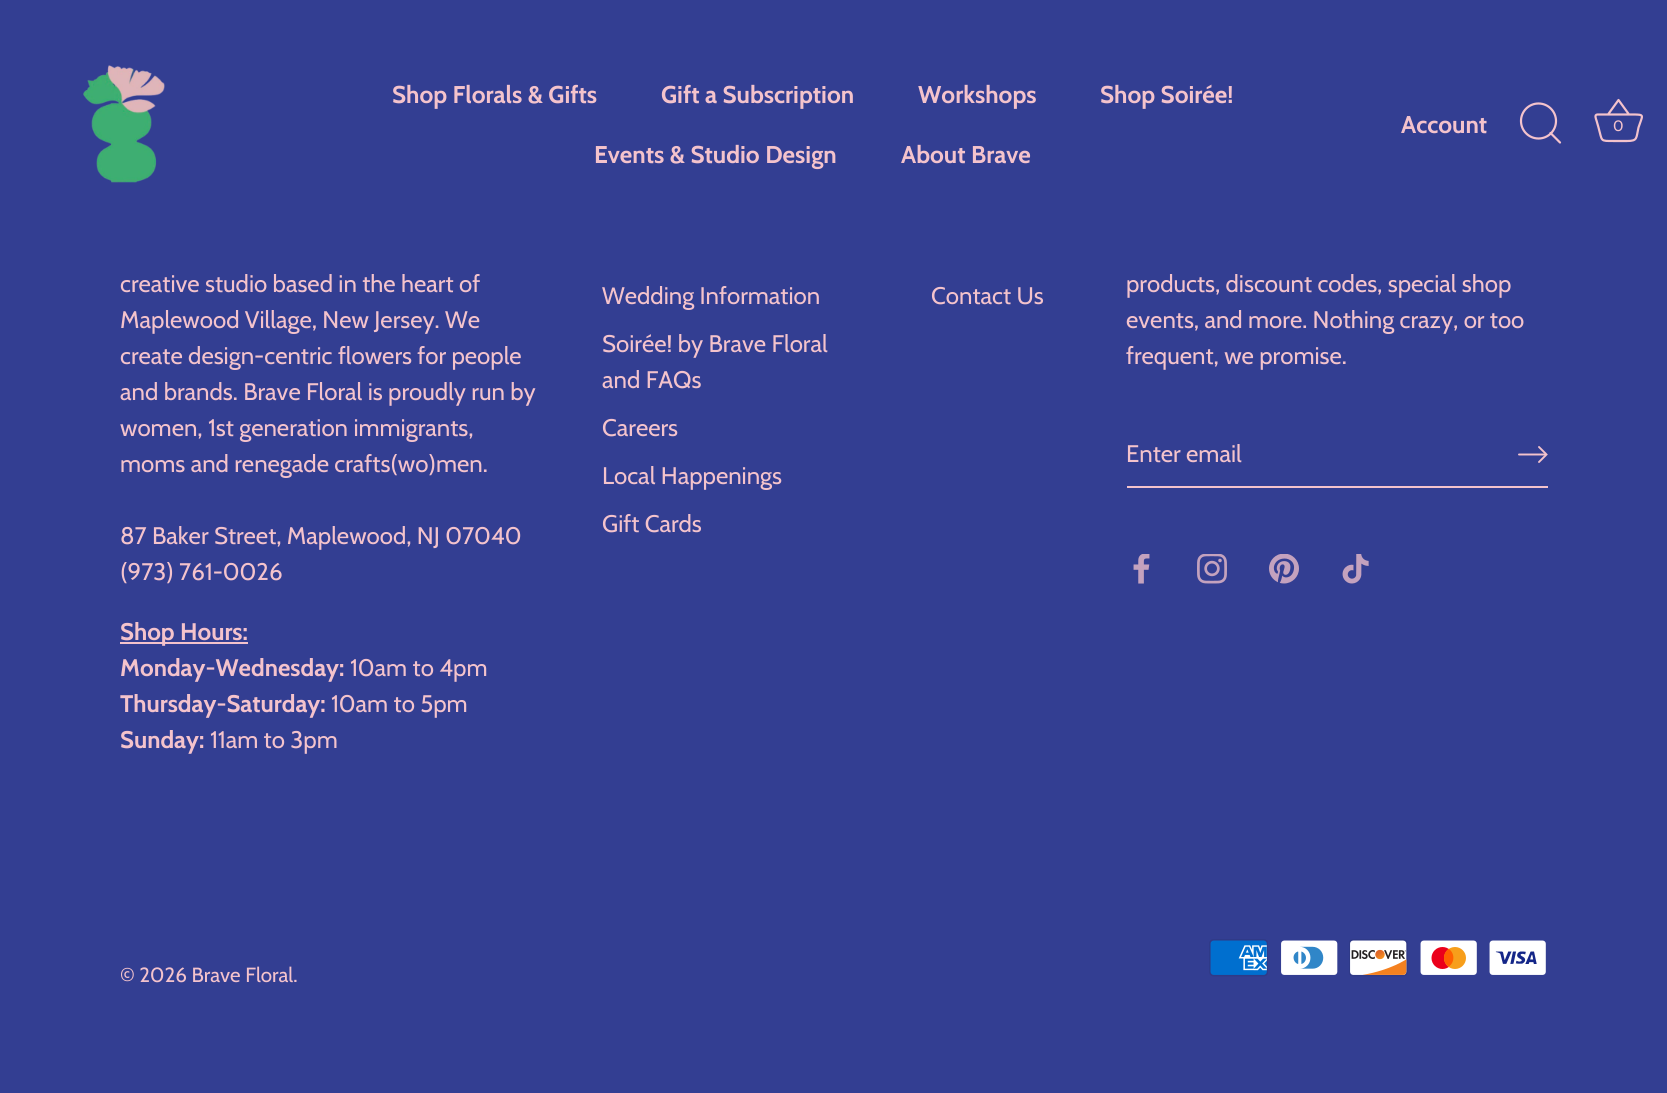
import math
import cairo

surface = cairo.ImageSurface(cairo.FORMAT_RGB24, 1667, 1093)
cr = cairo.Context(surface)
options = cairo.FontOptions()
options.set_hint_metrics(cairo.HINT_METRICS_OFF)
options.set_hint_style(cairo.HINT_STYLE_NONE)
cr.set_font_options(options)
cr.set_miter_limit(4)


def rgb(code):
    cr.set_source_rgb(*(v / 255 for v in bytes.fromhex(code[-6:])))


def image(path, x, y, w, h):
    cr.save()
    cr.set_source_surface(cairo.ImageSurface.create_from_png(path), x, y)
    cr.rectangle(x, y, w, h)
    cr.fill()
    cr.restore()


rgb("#333e92")
cr.paint()
image("img/1.png", 83, 65, 82, 118)
cr.arc(1538.5, 121, 17.5, 0, 2 * math.pi)
rgb("#f4c3cc")
cr.set_line_width(2.2)
cr.stroke()
cr.new_path()
cr.move_to(1560, 142.5)
cr.line_to(1550.5, 133)
cr.set_line_cap(cairo.LINE_CAP_ROUND)
cr.set_line_join(cairo.LINE_JOIN_ROUND)
cr.stroke()
cr.new_path()
cr.move_to(1597.5, 114.5)
cr.curve_to(1594, 114.5, 1596, 119, 1596.5, 120.5)
cr.line_to(1598.5, 127.5)
cr.curve_to(1602.5, 141.5, 1599.5, 141, 1614, 141)
cr.line_to(1627, 141)
cr.curve_to(1638, 141, 1636, 138, 1638.5, 127.5)
cr.curve_to(1642.5, 115, 1645.5, 114.5, 1632.5, 114.5)
cr.line_to(1597.5, 114.5)
cr.move_to(1608, 114.5)
cr.line_to(1618.5, 100)
cr.line_to(1629, 114.5)
cr.set_line_cap(cairo.LINE_CAP_BUTT)
cr.stroke()
cr.rectangle(120, 642, 128, 2)
cr.fill()
cr.rectangle(1127, 486, 421, 2)
cr.fill()
cr.new_path()
cr.move_to(1539, 462)
cr.line_to(1546.5, 454.5)
cr.line_to(1539, 447)
cr.set_line_width(1.9)
cr.set_line_cap(cairo.LINE_CAP_ROUND)
cr.set_line_join(cairo.LINE_JOIN_MITER)
cr.stroke()
cr.new_path()
cr.move_to(1545.5, 454.5)
cr.line_to(1519, 454.5)
cr.set_line_join(cairo.LINE_JOIN_ROUND)
cr.stroke()
image("img/2.png", 1133, 554, 17, 30)
image("img/3.png", 1197, 554, 30, 30)
image("img/4.png", 1269, 554, 30, 30)
image("img/5.png", 1342, 554, 27, 30)
image("img/6.png", 1209, 939, 59, 38)
image("img/7.png", 1281, 940, 57, 35)
image("img/8.png", 1349, 939, 59, 38)
image("img/9.png", 1420, 940, 57, 35)
image("img/10.png", 1489, 940, 57, 35)
cr.select_font_face("Cabin", cairo.FONT_SLANT_NORMAL, cairo.FONT_WEIGHT_BOLD)
cr.set_font_size(24.25)
for x, y, s in [
    (392, 103, "Shop Florals & Gifts"),
    (661, 103, "Gift a Subscription"),
    (918, 103, "Workshops"),
    (1100, 103, "Shop Soirée!"),
    (594, 163, "Events & Studio Design"),
    (901, 163, "About Brave"),
    (1401, 133, "Account"),
]:
    cr.move_to(x, y)
    cr.show_text(s)
cr.select_font_face("Cabin")
cr.set_font_size(15)
cr.move_to(1613, 131)
cr.show_text("0")
cr.set_font_size(24)
for x, y, s in [
    (120, 292, "creative studio based in the heart of"),
    (120, 328, "Maplewood Village, New Jersey. We"),
    (120, 364, "create design-centric flowers for people"),
    (120, 400, "and brands. Brave Floral is proudly run by"),
    (120, 436, "women, 1st generation immigrants,"),
    (120, 472, "moms and renegade crafts(wo)men."),
    (120, 544, "87 Baker Street, Maplewood, NJ 07040"),
    (120, 580, "(973) 761-0026"),
]:
    cr.move_to(x, y)
    cr.show_text(s)
cr.select_font_face("Cabin", cairo.FONT_SLANT_NORMAL, cairo.FONT_WEIGHT_BOLD)
cr.move_to(120, 640)
cr.show_text("Shop Hours:")
cr.move_to(120, 676)
cr.show_text("Monday-Wednesday:")
cr.select_font_face("Cabin")
cr.move_to(350, 676)
cr.show_text("10am to 4pm")
cr.select_font_face("Cabin", cairo.FONT_SLANT_NORMAL, cairo.FONT_WEIGHT_BOLD)
cr.move_to(120, 712)
cr.show_text("Thursday-Saturday:")
cr.select_font_face("Cabin")
cr.move_to(331, 712)
cr.show_text("10am to 5pm")
cr.select_font_face("Cabin", cairo.FONT_SLANT_NORMAL, cairo.FONT_WEIGHT_BOLD)
cr.move_to(120, 748)
cr.show_text("Sunday:")
cr.select_font_face("Cabin")
for x, y, s in [
    (210, 748, "11am to 3pm"),
    (602, 304, "Wedding Information"),
    (602, 352, "Soirée! by Brave Floral"),
    (602, 388, "and FAQs"),
    (602, 436, "Careers"),
    (602, 484, "Local Happenings"),
    (602, 532, "Gift Cards"),
    (931, 304, "Contact Us"),
    (1126, 292, "products, discount codes, special shop"),
    (1126, 328, "events, and more. Nothing crazy, or too"),
    (1126, 364, "frequent, we promise."),
    (1126, 462, "Enter email"),
]:
    cr.move_to(x, y)
    cr.show_text(s)
cr.set_font_size(20.5)
cr.move_to(120, 982)
cr.show_text("© 2026 Brave Floral.")
surface.write_to_png("page.png")
